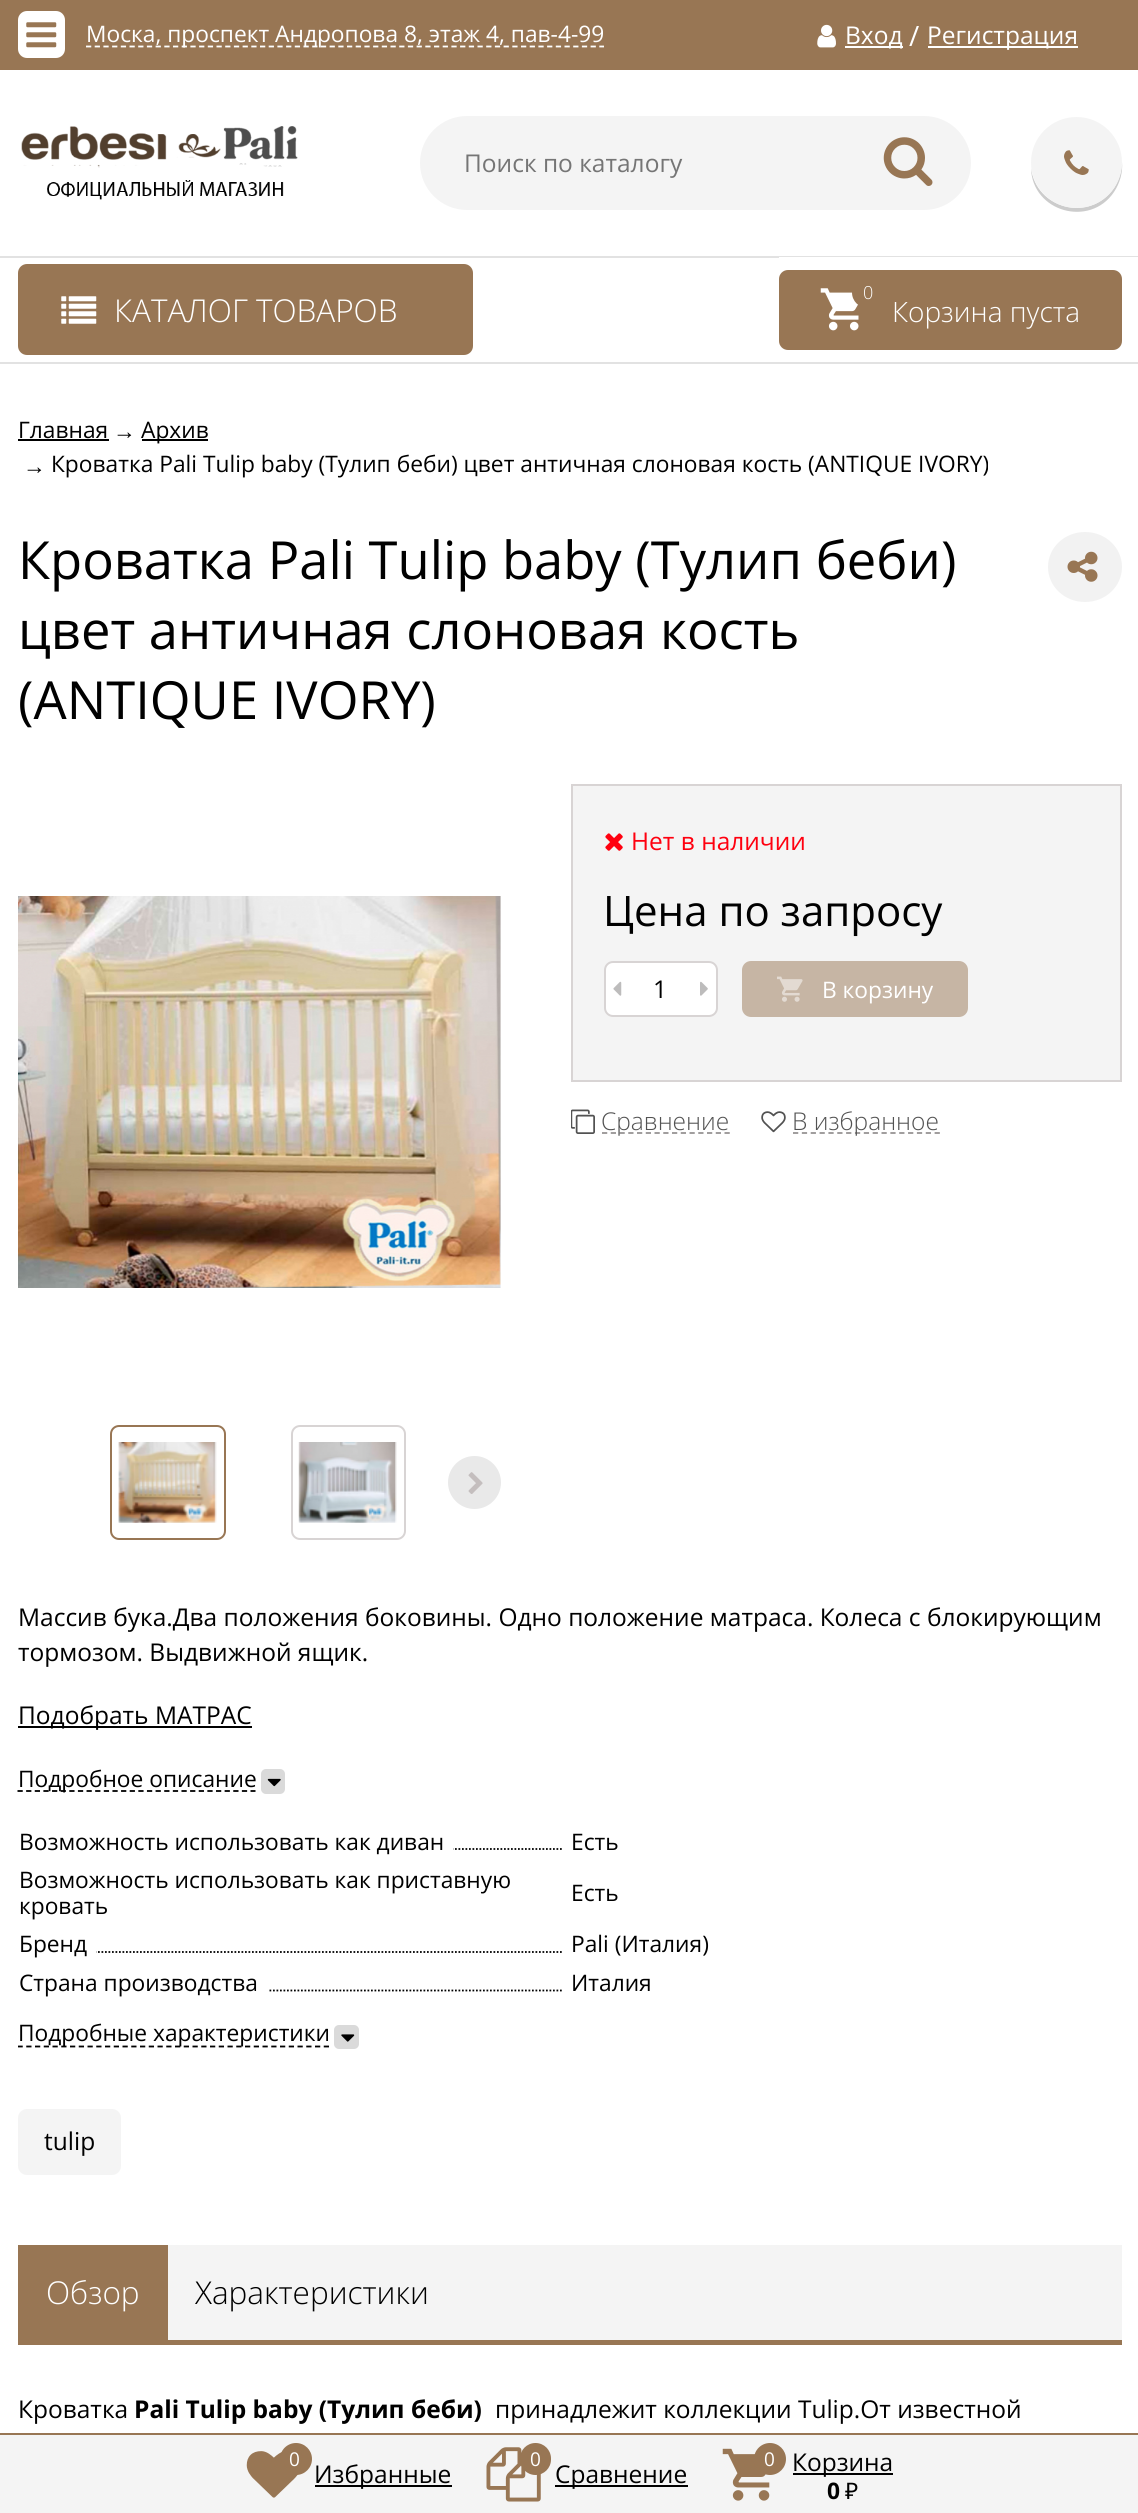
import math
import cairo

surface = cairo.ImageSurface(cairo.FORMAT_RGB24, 1138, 2513)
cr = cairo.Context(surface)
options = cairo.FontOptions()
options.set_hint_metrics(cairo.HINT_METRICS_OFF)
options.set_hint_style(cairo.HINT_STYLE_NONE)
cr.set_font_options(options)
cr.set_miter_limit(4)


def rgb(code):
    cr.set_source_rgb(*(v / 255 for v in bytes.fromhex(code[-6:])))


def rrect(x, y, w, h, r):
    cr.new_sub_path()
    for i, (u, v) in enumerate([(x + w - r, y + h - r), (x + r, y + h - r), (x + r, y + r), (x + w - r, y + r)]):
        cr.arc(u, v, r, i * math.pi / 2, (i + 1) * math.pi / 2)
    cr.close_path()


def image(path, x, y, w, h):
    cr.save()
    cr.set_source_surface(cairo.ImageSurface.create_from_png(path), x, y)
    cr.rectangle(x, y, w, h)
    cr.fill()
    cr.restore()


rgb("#ffffff")
cr.paint()
rgb("#987654")
cr.rectangle(0, 0, 1138, 70)
cr.fill()
rgb("#ffffff")
rrect(18, 11, 47, 47, 9)
cr.fill()
image("img/1.png", 26, 22, 31, 26)
cr.new_path()
cr.move_to(86, 46.5)
cr.line_to(604, 46.5)
cr.set_line_width(1.8)
cr.set_dash([5.25, 3.45])
cr.stroke()
image("img/2.png", 817, 24, 19, 24)
cr.rectangle(845, 46, 58, 2)
cr.fill()
cr.rectangle(928, 46, 150, 2)
cr.fill()
image("img/3.png", 21, 126, 277, 74)
rgb("#f4f4f4")
rrect(420, 116, 551, 94, 47)
cr.fill()
image("img/4.png", 883, 137, 50, 49)
rgb("#cccccc")
cr.new_path()
cr.move_to(1031, 168)
cr.curve_to(1032, 212, 1090, 228, 1114, 192)
cr.curve_to(1120, 183, 1123, 172, 1122, 162)
cr.curve_to(1122, 171, 1119, 180, 1114, 188)
cr.curve_to(1090, 223, 1036, 209, 1031, 168)
cr.close_path()
cr.fill()
rgb("#f4f4f4")
cr.arc(1076.5, 162.5, 45.5, 0, 2 * math.pi)
cr.fill()
image("img/5.png", 1064, 150, 25, 25)
rgb("#e2e2e2")
cr.rectangle(0, 256, 1138, 2)
cr.fill()
cr.rectangle(0, 362, 1138, 2)
cr.fill()
rgb("#987654")
rrect(18, 264, 455, 91, 9)
cr.fill()
image("img/6.png", 61, 296, 36, 28)
rgb("#ffffff")
cr.rectangle(779, 257, 359, 1)
cr.fill()
rgb("#987654")
rrect(779, 270, 343, 80, 9)
cr.fill()
image("img/7.png", 820, 288, 39, 43)
rrect(852, 277, 32, 31, 15.5)
cr.fill()
rgb("#000000")
cr.rectangle(18, 439, 91, 2)
cr.fill()
cr.rectangle(142, 439, 66, 2)
cr.fill()
rgb("#f2f2f2")
cr.new_path()
cr.move_to(1085, 532)
cr.curve_to(1105.5, 532, 1122, 547.5, 1122, 567)
cr.curve_to(1122, 586.5, 1105.5, 602, 1085, 602)
cr.curve_to(1064.5, 602, 1048, 586.5, 1048, 567)
cr.curve_to(1048, 547.5, 1064.5, 532, 1085, 532)
cr.close_path()
cr.fill()
image("img/8.png", 1067, 551, 31, 31)
image("img/9.png", 18, 896, 483, 392)
rrect(111, 1426, 114, 113, 8)
rgb("#987654")
cr.set_line_width(2)
cr.set_dash([])
cr.stroke()
image("img/10.png", 118, 1442, 99, 81)
rrect(292, 1426, 113, 113, 8)
rgb("#d8d4d4")
cr.stroke()
image("img/11.png", 298, 1442, 99, 81)
rgb("#e9e9e9")
cr.arc(474.5, 1482.5, 26.5, 0, 2 * math.pi)
cr.fill()
image("img/12.png", 468, 1472, 15, 22)
rgb("#f4f4f4")
cr.rectangle(572, 785, 549, 296)
cr.fill_preserve()
rgb("#d8d4d4")
cr.stroke()
image("img/13.png", 605, 833, 18, 18)
rgb("#ffffff")
rrect(605, 962, 112, 54, 8)
cr.fill_preserve()
rgb("#d8d4d4")
cr.stroke()
image("img/14.png", 613, 981, 9, 15)
image("img/15.png", 700, 981, 8, 15)
rgb("#c6b5a4")
rrect(742, 961, 226, 56, 9)
cr.fill()
image("img/16.png", 777, 976, 26, 26)
image("img/17.png", 571, 1109, 24, 25)
cr.new_path()
cr.move_to(602, 1133)
cr.line_to(730, 1133)
rgb("#979494")
cr.set_line_width(1.8)
cr.set_dash([5.25, 3.5])
cr.stroke()
image("img/18.png", 761, 1111, 25, 22)
cr.new_path()
cr.move_to(793, 1133)
cr.line_to(940, 1133)
cr.set_dash([5.25, 3.6])
cr.stroke()
rgb("#000000")
cr.rectangle(18, 1726, 234, 2)
cr.fill()
cr.new_path()
cr.move_to(17.5, 1791)
cr.line_to(255.5, 1791)
cr.set_dash([5.25, 3.38])
cr.stroke()
rgb("#dadada")
rrect(261, 1769, 24, 25, 5)
cr.fill()
image("img/19.png", 267, 1778, 14, 9)
cr.new_path()
cr.move_to(35, 1849)
cr.line_to(562, 1849)
rgb("#000000")
cr.set_dash([1.75, 1.75])
cr.stroke()
rgb("#ffffff")
cr.rectangle(35, 1848, 418, 2)
cr.fill()
cr.new_path()
cr.move_to(35, 1952)
cr.line_to(562, 1952)
rgb("#000000")
cr.stroke()
rgb("#ffffff")
cr.rectangle(35, 1951, 61, 2)
cr.fill()
cr.new_path()
cr.move_to(35, 1990.5)
cr.line_to(562, 1990.5)
rgb("#000000")
cr.stroke()
rgb("#ffffff")
cr.rectangle(35, 1989, 233, 3)
cr.fill()
cr.save()
cr.rectangle(18, 1593, 1104, 582)
cr.clip()
cr.new_path()
cr.move_to(17.5, 2046.5)
cr.line_to(329, 2046.5)
rgb("#000000")
cr.set_dash([5.25, 3.5])
cr.stroke()
cr.restore()
rgb("#dadada")
rrect(334, 2025, 25, 24, 5)
cr.fill()
image("img/20.png", 341, 2034, 14, 8)
rgb("#f4f4f4")
rrect(18, 2109, 103, 66, 9)
cr.fill()
for x, y, w, h, color in [
    (168, 2245, 954, 95, "#f4f4f4"),
    (18, 2340, 1104, 5, "#987654"),
    (18, 2245, 150, 95, "#987654"),
    (0, 2435, 1138, 78, "#f4f4f4"),
    (0, 2433, 1138, 2, "#987654"),
]:
    rgb(color)
    cr.rectangle(x, y, w, h)
    cr.fill()
image("img/21.png", 246, 2451, 52, 47)
cr.arc(296, 2459, 16, 0, 2 * math.pi)
cr.fill()
rgb("#000000")
cr.rectangle(315, 2485, 137, 2)
cr.fill()
image("img/22.png", 486, 2447, 55, 55)
rgb("#987654")
rrect(520, 2443, 31, 32, 15.5)
cr.fill()
rgb("#000000")
cr.rectangle(555, 2485, 133, 2)
cr.fill()
image("img/23.png", 722, 2448, 48, 53)
rgb("#987654")
cr.arc(770, 2459, 16, 0, 2 * math.pi)
cr.fill()
rgb("#000000")
cr.rectangle(793, 2473, 100, 2)
cr.fill()
cr.select_font_face("Open Sans")
cr.set_font_size(22.75)
rgb("#ffffff")
cr.move_to(86, 42)
cr.show_text("Моска, проспект Андропова 8, этаж 4, пав-4-99")
cr.set_font_size(24.5)
cr.move_to(845, 44)
cr.show_text("Вход")
cr.set_font_size(28)
cr.move_to(909, 46)
cr.show_text("/")
cr.set_font_size(24.5)
cr.move_to(927, 44)
cr.show_text("Регистрация")
rgb("#757575")
cr.move_to(464, 172)
cr.show_text("Поиск по каталогу")
cr.select_font_face("Open Sans Light")
cr.set_font_size(31.5)
rgb("#ffffff")
cr.move_to(114, 322)
cr.show_text("КАТАЛОГ ТОВАРОВ")
cr.set_font_size(18)
cr.move_to(863, 299)
cr.show_text("0")
cr.set_font_size(28)
cr.move_to(892, 322)
cr.show_text("Корзина пуста")
cr.select_font_face("Open Sans")
cr.set_font_size(22.75)
rgb("#000000")
cr.move_to(18, 438)
cr.show_text("Главная")
cr.select_font_face("Liberation Sans")
cr.move_to(113, 439)
cr.show_text("→")
cr.select_font_face("Open Sans")
cr.move_to(141, 438)
cr.show_text("Архив")
cr.select_font_face("Liberation Sans")
cr.move_to(23, 474)
cr.show_text("→")
cr.select_font_face("Open Sans")
cr.move_to(51, 472)
cr.show_text("Кроватка Pali Tulip baby (Тулип беби) цвет античная слоновая кость (ANTIQUE IVORY)")
cr.set_font_size(52.5)
for x, y, s in [
    (18, 579, "Кроватка Pali Tulip baby (Тулип беби)"),
    (18, 649, "цвет античная слоновая кость"),
    (18, 719, "(ANTIQUE IVORY)"),
]:
    cr.move_to(x, y)
    cr.show_text(s)
cr.set_font_size(24.5)
rgb("#ff000f")
cr.move_to(631, 850)
cr.show_text("Нет в наличии")
cr.set_font_size(42)
rgb("#000000")
cr.move_to(603, 926)
cr.show_text("Цена по запросу")
cr.set_font_size(24.5)
cr.move_to(653, 998)
cr.show_text("1")
cr.set_font_size(22.75)
rgb("#ffffff")
cr.move_to(822, 998)
cr.show_text("В корзину")
cr.select_font_face("Open Sans Light")
cr.set_font_size(24.5)
rgb("#525252")
cr.move_to(601, 1130)
cr.show_text("Сравнение")
cr.move_to(792, 1130)
cr.show_text("В избранное")
cr.select_font_face("Open Sans")
rgb("#000000")
for x, y, s in [
    (18, 1626, "Массив бука.Два положения боковины. Одно положение матраса. Колеса с блокирующим"),
    (18, 1661, "тормозом. Выдвижной ящик."),
    (18, 1724, "Подобрать МАТРАС"),
]:
    cr.move_to(x, y)
    cr.show_text(s)
cr.set_font_size(22.75)
for x, y, s in [
    (18, 1787, "Подробное описание"),
    (19, 1850, "Возможность использовать как диван"),
    (571, 1850, "Есть"),
    (19, 1888, "Возможность использовать как приставную"),
    (19, 1914, "кровать"),
    (571, 1901, "Есть"),
    (19, 1952, "Бренд"),
    (571, 1952, "Pali (Италия)"),
    (19, 1991, "Страна производства"),
    (571, 1991, "Италия"),
    (18, 2041, "Подробные характеристики"),
]:
    cr.move_to(x, y)
    cr.show_text(s)
cr.set_font_size(24.5)
cr.move_to(44, 2150)
cr.show_text("tulip")
cr.select_font_face("Open Sans Light")
cr.set_font_size(31.5)
rgb("#ffffff")
cr.move_to(46, 2304)
cr.show_text("Обзор")
rgb("#000000")
cr.move_to(195, 2304)
cr.show_text("Характеристики")
cr.select_font_face("Open Sans")
cr.set_font_size(24.5)
cr.move_to(18, 2418)
cr.show_text("Кроватка")
cr.select_font_face("Open Sans", cairo.FONT_SLANT_NORMAL, cairo.FONT_WEIGHT_BOLD)
cr.move_to(134, 2418)
cr.show_text("Pali Tulip baby (Тулип беби)")
cr.select_font_face("Open Sans")
cr.move_to(495, 2418)
cr.show_text("принадлежит коллекции Tulip.От известной")
cr.set_font_size(19)
rgb("#ffffff")
cr.move_to(289, 2466)
cr.show_text("0")
cr.set_font_size(24.5)
rgb("#000000")
cr.move_to(314, 2483)
cr.show_text("Избранные")
cr.set_font_size(19)
rgb("#ffffff")
cr.move_to(530, 2466)
cr.show_text("0")
cr.set_font_size(24.5)
rgb("#000000")
cr.move_to(555, 2483)
cr.show_text("Сравнение")
cr.set_font_size(19)
rgb("#ffffff")
cr.move_to(764, 2466)
cr.show_text("0")
cr.set_font_size(24.5)
rgb("#000000")
cr.move_to(792, 2471)
cr.show_text("Корзина")
cr.select_font_face("Open Sans", cairo.FONT_SLANT_NORMAL, cairo.FONT_WEIGHT_BOLD)
cr.set_font_size(22.75)
cr.move_to(827, 2499)
cr.show_text("0")
cr.select_font_face("Noto Sans")
cr.move_to(845, 2499)
cr.show_text("₽")
surface.write_to_png("page.png")
